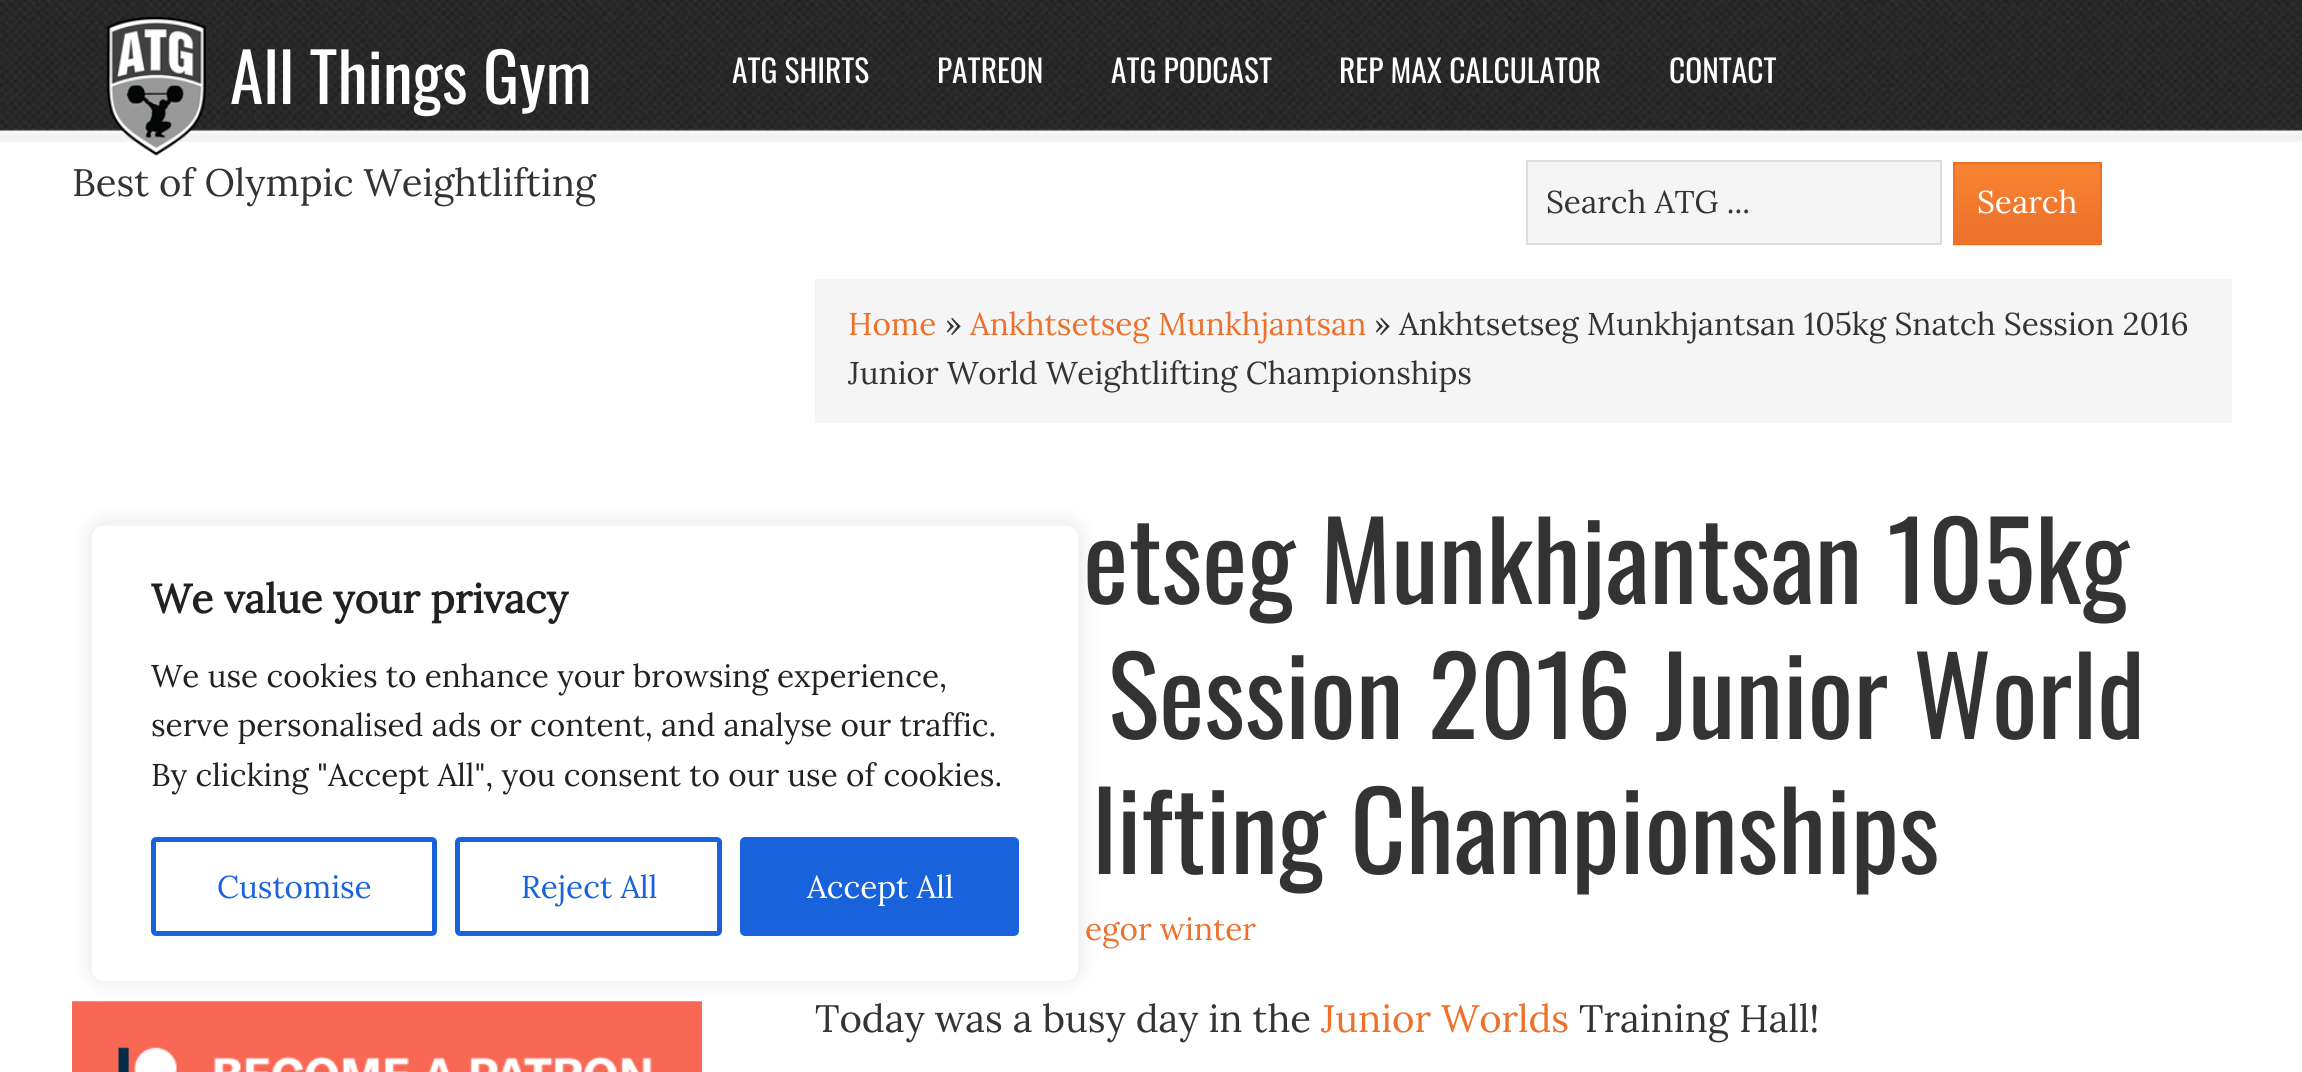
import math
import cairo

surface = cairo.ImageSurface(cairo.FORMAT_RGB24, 2302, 1072)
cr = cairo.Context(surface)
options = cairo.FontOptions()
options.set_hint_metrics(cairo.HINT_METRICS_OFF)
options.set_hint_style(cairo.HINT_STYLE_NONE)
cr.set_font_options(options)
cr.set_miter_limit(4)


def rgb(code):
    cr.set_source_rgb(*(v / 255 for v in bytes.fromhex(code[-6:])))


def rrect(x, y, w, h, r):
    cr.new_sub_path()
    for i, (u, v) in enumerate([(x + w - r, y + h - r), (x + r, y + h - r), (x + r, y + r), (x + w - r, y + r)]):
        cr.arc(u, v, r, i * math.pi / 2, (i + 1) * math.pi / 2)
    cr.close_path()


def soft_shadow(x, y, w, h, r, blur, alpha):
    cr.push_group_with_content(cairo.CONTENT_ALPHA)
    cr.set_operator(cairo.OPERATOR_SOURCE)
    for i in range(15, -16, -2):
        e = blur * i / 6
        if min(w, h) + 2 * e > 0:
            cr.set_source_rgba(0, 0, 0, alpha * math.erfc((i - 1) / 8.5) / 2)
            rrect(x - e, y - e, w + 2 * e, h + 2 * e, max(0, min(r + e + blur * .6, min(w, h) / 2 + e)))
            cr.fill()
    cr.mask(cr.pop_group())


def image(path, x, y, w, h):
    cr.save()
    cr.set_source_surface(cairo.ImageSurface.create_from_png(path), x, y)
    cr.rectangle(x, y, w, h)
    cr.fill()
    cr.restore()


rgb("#ffffff")
cr.paint()
image("img/1.png", 0, 0, 2302, 142)
image("img/2.png", 106, 16, 100, 140)
rgb("#f5f5f5")
cr.rectangle(1527, 161, 414, 83)
cr.fill_preserve()
rgb("#dddddd")
cr.stroke()
image("img/3.png", 1953, 164, 149, 82)
cr.rectangle(1954, 163, 147, 81)
rgb("#ed702b")
cr.stroke()
image("img/4.png", 72, 1001, 630, 71)
rgb("#f5f5f5")
cr.rectangle(815, 279, 1417, 144)
cr.fill()
rgb("#acabab")
soft_shadow(90, 522, 990, 459, 14, 11, 0.3)
rgb("#ffffff")
rrect(91, 525, 988, 457, 13)
cr.fill_preserve()
rgb("#f4f4f4")
cr.stroke()
rrect(153.5, 839.5, 281, 94, 2.5)
rgb("#1863dc")
cr.set_line_width(5)
cr.stroke()
rrect(457.5, 839.5, 262, 94, 2.5)
cr.stroke()
rrect(742.5, 839.5, 274, 94, 2.5)
cr.fill_preserve()
cr.stroke()
cr.select_font_face("Oswald")
cr.set_font_size(67.5)
rgb("#ffffff")
cr.move_to(230, 104)
cr.show_text("All Things Gym")
cr.select_font_face("Lora")
cr.set_font_size(38.25)
rgb("#333333")
cr.move_to(72, 196)
cr.show_text("Best of Olympic Weightlifting")
cr.select_font_face("Oswald")
cr.set_font_size(31.5)
rgb("#ffffff")
for x, y, s in [
    (732, 83, "ATG SHIRTS"),
    (937, 83, "PATREON"),
    (1111, 83, "ATG PODCAST"),
    (1339, 83, "REP MAX CALCULATOR"),
    (1669, 83, "CONTACT"),
]:
    cr.move_to(x, y)
    cr.show_text(s)
cr.select_font_face("Lora")
rgb("#333333")
cr.move_to(1546, 213)
cr.show_text("Search ATG ...")
rgb("#ffffff")
cr.move_to(1977, 213)
cr.show_text("Search")
rgb("#ed702b")
cr.move_to(848, 335)
cr.show_text("Home")
rgb("#333333")
cr.move_to(945, 335)
cr.show_text("»")
rgb("#ed702b")
cr.move_to(970, 335)
cr.show_text("Ankhtsetseg Munkhjantsan")
rgb("#333333")
cr.move_to(1374, 335)
cr.show_text("» Ankhtsetseg Munkhjantsan 105kg Snatch Session 2016")
cr.move_to(848, 384)
cr.show_text("Junior World Weightlifting Championships")
cr.select_font_face("Oswald")
cr.set_font_size(108)
for x, y, s in [
    (1083, 604, "etseg Munkhjantsan 105kg"),
    (1108, 739, "Session 2016 Junior World"),
    (1092, 874, "lifting Championships"),
]:
    cr.move_to(x, y)
    cr.show_text(s)
cr.select_font_face("Lora")
cr.set_font_size(31.5)
rgb("#ed702b")
cr.move_to(1085, 940)
cr.show_text("egor winter")
cr.set_font_size(38.25)
rgb("#333333")
cr.move_to(815, 1032)
cr.show_text("Today was a busy day in the")
rgb("#ed702b")
cr.move_to(1321, 1032)
cr.show_text("Junior Worlds")
rgb("#333333")
cr.move_to(1579, 1032)
cr.show_text("Training Hall!")
cr.select_font_face("Lora", cairo.FONT_SLANT_NORMAL, cairo.FONT_WEIGHT_BOLD)
cr.set_font_size(40.5)
rgb("#212121")
cr.move_to(151, 613)
cr.show_text("We value your privacy")
cr.select_font_face("Lora")
cr.set_font_size(31.5)
for x, y, s in [
    (151, 687, "We use cookies to enhance your browsing experience,"),
    (151, 736, "serve personalised ads or content, and analyse our traffic."),
    (151, 786, "By clicking \"Accept All\", you consent to our use of cookies."),
]:
    cr.move_to(x, y)
    cr.show_text(s)
rgb("#1863dc")
cr.move_to(217, 898)
cr.show_text("Customise")
cr.move_to(521, 898)
cr.show_text("Reject All")
rgb("#ffffff")
cr.move_to(807, 898)
cr.show_text("Accept All")
surface.write_to_png("page.png")
